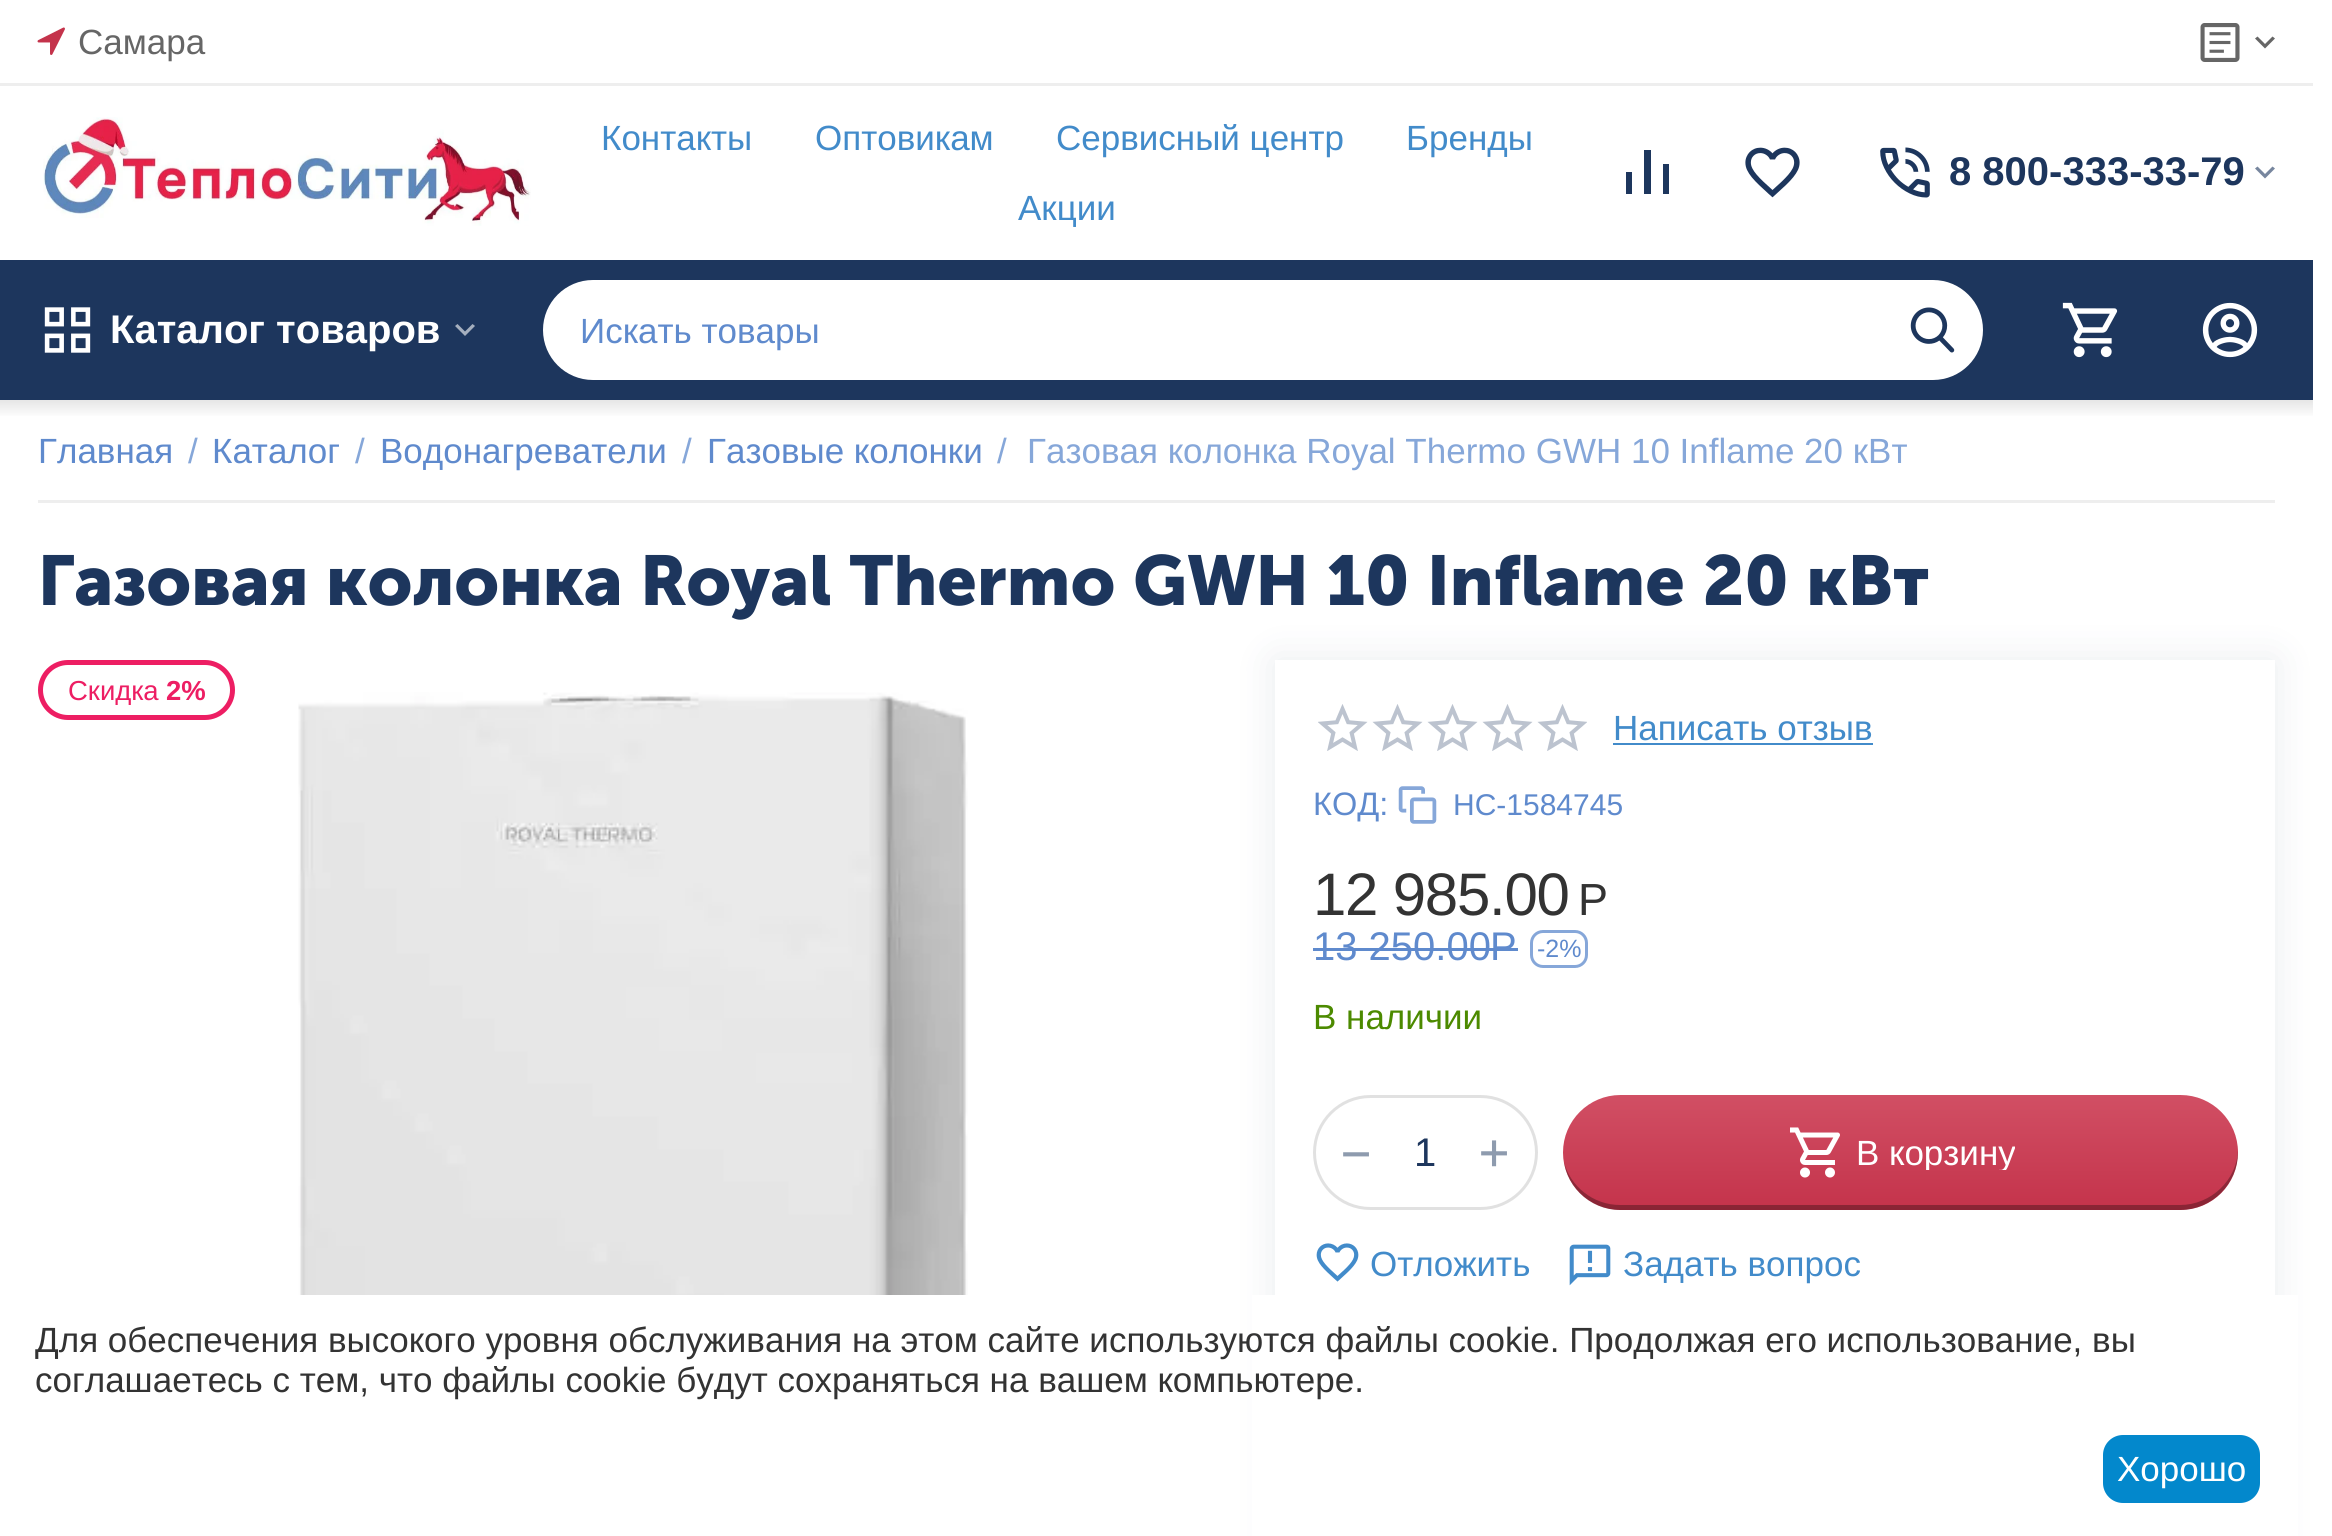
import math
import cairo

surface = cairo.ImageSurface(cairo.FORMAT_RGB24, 2332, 1536)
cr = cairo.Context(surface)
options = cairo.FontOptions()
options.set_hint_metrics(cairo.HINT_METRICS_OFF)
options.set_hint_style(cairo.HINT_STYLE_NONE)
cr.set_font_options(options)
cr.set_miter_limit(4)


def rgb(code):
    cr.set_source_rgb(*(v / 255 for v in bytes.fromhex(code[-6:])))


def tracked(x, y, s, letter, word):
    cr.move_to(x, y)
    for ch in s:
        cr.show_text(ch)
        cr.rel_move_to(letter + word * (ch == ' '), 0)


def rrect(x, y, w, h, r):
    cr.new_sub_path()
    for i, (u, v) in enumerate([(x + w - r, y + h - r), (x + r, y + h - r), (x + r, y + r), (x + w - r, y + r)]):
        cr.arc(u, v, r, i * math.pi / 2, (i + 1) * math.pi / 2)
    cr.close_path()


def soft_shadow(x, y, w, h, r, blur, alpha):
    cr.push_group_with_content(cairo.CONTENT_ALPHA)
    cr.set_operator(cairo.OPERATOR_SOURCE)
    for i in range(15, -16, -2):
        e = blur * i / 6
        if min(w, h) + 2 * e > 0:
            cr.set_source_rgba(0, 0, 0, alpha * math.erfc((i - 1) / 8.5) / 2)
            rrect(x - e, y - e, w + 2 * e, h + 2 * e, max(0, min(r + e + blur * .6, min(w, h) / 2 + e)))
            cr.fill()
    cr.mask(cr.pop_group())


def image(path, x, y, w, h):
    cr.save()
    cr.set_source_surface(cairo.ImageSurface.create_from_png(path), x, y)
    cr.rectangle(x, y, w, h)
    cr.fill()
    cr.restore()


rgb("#ffffff")
cr.paint()
rgb("#eeeeee")
cr.rectangle(0, 83, 2313, 3)
cr.fill()
image("img/1.png", 37, 27, 28, 28)
image("img/2.png", 2200, 23, 40, 39)
rgb("#666666")
cr.new_path()
cr.move_to(2272.5, 36.5)
cr.line_to(2265, 44)
cr.line_to(2257.5, 36.5)
cr.line_to(2255, 38.5)
cr.line_to(2265, 48.5)
cr.line_to(2275, 38.5)
cr.close_path()
cr.fill()
image("img/3.png", 43, 117, 488, 109)
rgb("#1d365d")
cr.new_path()
cr.move_to(1626, 172)
cr.line_to(1632, 172)
cr.line_to(1632, 194)
cr.line_to(1626, 194)
cr.close_path()
cr.move_to(1644, 150)
cr.line_to(1651, 150)
cr.line_to(1651, 194)
cr.line_to(1644, 194)
cr.close_path()
cr.move_to(1663, 164)
cr.line_to(1669, 164)
cr.line_to(1669, 194)
cr.line_to(1663, 194)
cr.close_path()
cr.fill()
image("img/4.png", 1745, 147, 55, 51)
image("img/5.png", 1880, 147, 50, 51)
rgb("#77869e")
cr.new_path()
cr.move_to(2272.5, 166.5)
cr.line_to(2265, 174)
cr.line_to(2257.5, 166.5)
cr.line_to(2255, 168.5)
cr.line_to(2265, 178.5)
cr.line_to(2275, 168.5)
cr.close_path()
cr.fill()
rgb("#1d365d")
cr.rectangle(0, 260, 2313, 140)
cr.fill()
image("img/6.png", 44, 307, 47, 46)
rgb("#a5afbe")
cr.new_path()
cr.move_to(472.5, 324)
cr.line_to(465, 331.5)
cr.line_to(457.5, 324)
cr.line_to(455, 326)
cr.line_to(465, 336)
cr.line_to(475, 326)
cr.close_path()
cr.fill()
rgb("#ffffff")
rrect(543, 280, 1440, 100, 50)
cr.fill()
image("img/7.png", 1910, 307, 45, 46)
image("img/8.png", 2062, 302, 56, 56)
image("img/9.png", 2202, 302, 56, 56)
gradient = cairo.LinearGradient(1156, 400, 1156, 418)
gradient.add_color_stop_rgba(0, 0.902, 0.902, 0.902, 1)
gradient.add_color_stop_rgba(1, 1, 1, 1, 1)
cr.set_source(gradient)
cr.rectangle(0, 400, 2313, 16)
cr.fill()
rgb("#eeeeee")
cr.rectangle(38, 500, 2237, 3)
cr.fill()
rrect(40.5, 662.5, 192, 55, 27.5)
rgb("#ed1e63")
cr.set_line_width(5)
cr.stroke()
image("img/10.png", 298, 692, 670, 603)
cr.save()
cr.set_fill_rule(cairo.FILL_RULE_EVEN_ODD)
cr.new_path()
cr.move_to(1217, 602)
cr.line_to(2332, 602)
cr.line_to(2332, 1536)
cr.line_to(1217, 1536)
cr.close_path()
cr.move_to(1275, 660)
cr.line_to(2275, 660)
cr.line_to(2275, 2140)
cr.line_to(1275, 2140)
cr.close_path()
cr.clip()
rgb("#1d365d")
soft_shadow(1275, 660, 1000, 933, 0, 19, 0.1)
cr.restore()
image("img/11.png", 1318, 704, 269, 47)
rgb("#428bca")
cr.rectangle(1613, 743, 260, 2)
cr.fill()
image("img/12.png", 1398, 786, 39, 38)
rgb("#5f8acd")
cr.rectangle(1313, 948, 205, 3)
cr.fill()
rrect(1531.5, 931.5, 55, 35, 11.5)
rgb("#86a7d9")
cr.set_line_width(3)
cr.stroke()
rrect(1314.5, 1096.5, 222, 112, 56)
rgb("#e1e1e1")
cr.stroke()
gradient = cairo.LinearGradient(1900, 1210, 1900, 1095)
gradient.add_color_stop_rgba(0, 0.769, 0.2, 0.294, 1)
gradient.add_color_stop_rgba(1, 0.82, 0.31, 0.392, 1)
cr.set_source(gradient)
rrect(1563, 1095, 675, 115, 57.5)
cr.fill()
cr.set_source_rgba(0, 0, 0, 0.3)
cr.new_path()
cr.move_to(1564, 1162)
cr.curve_to(1568, 1189, 1592, 1210, 1620, 1210)
cr.line_to(2180, 1210)
cr.curve_to(2212, 1210, 2238, 1184, 2238, 1152)
cr.line_to(2238, 1150)
cr.curve_to(2237, 1180, 2211, 1205, 2180, 1205)
cr.line_to(1620, 1205)
cr.curve_to(1593, 1205, 1570, 1186, 1564, 1162)
cr.close_path()
cr.fill()
image("img/13.png", 1790, 1127, 50, 51)
image("img/14.png", 1316, 1243, 43, 39)
image("img/15.png", 1569, 1244, 42, 42)
rgb("#ffffff")
cr.rectangle(1252, 1295, 1046, 241)
cr.fill()
rgb("#0388cc")
rrect(2103, 1435, 157, 68, 20)
cr.fill()
cr.select_font_face("Liberation Sans")
cr.set_font_size(35)
rgb("#666666")
cr.move_to(78, 54)
cr.show_text("Самара")
rgb("#428bca")
for x, y, s in [
    (601, 150, "Контакты"),
    (815, 150, "Оптовикам"),
    (1056, 150, "Сервисный центр"),
    (1406, 150, "Бренды"),
    (1018, 220, "Акции"),
]:
    cr.move_to(x, y)
    cr.show_text(s)
cr.select_font_face("Liberation Sans", cairo.FONT_SLANT_NORMAL, cairo.FONT_WEIGHT_BOLD)
cr.set_font_size(40)
rgb("#1d365d")
cr.move_to(1949, 185)
cr.show_text("8 800-333-33-79")
rgb("#ffffff")
cr.move_to(110, 343)
cr.show_text("Каталог товаров")
cr.select_font_face("Liberation Sans")
cr.set_font_size(35)
rgb("#5f8acd")
cr.move_to(580, 343)
cr.show_text("Искать товары")
cr.move_to(38, 463)
cr.show_text("Главная")
rgb("#86a7d9")
cr.move_to(188, 463)
cr.show_text("/")
rgb("#5f8acd")
cr.move_to(212, 463)
cr.show_text("Каталог")
rgb("#86a7d9")
cr.move_to(355, 463)
cr.show_text("/")
rgb("#5f8acd")
cr.move_to(380, 463)
cr.show_text("Водонагреватели")
rgb("#86a7d9")
cr.move_to(682, 463)
cr.show_text("/")
rgb("#5f8acd")
cr.move_to(707, 463)
cr.show_text("Газовые колонки")
rgb("#86a7d9")
cr.move_to(997, 463)
cr.show_text("/")
cr.move_to(1027, 463)
cr.show_text("Газовая колонка Royal Thermo GWH 10 Inflame 20 кВт")
cr.select_font_face("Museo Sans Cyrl", cairo.FONT_SLANT_NORMAL, cairo.FONT_WEIGHT_BOLD)
cr.set_font_size(70)
rgb("#1d365d")
cr.move_to(38, 605)
cr.show_text("Газовая колонка Royal Thermo GWH 10 Inflame 20 кВт")
cr.save()
cr.rectangle(68, 675, 137, 30)
cr.clip()
cr.select_font_face("Liberation Sans")
cr.set_font_size(27.5)
rgb("#ed1e63")
cr.move_to(68, 700)
cr.show_text("Скидка")
cr.restore()
cr.select_font_face("Liberation Sans", cairo.FONT_SLANT_NORMAL, cairo.FONT_WEIGHT_BOLD)
cr.set_font_size(27.5)
rgb("#ed1e63")
cr.move_to(166, 700)
cr.show_text("2%")
cr.select_font_face("Liberation Sans")
cr.set_font_size(35)
rgb("#428bca")
cr.move_to(1613, 740)
cr.show_text("Написать отзыв")
cr.set_font_size(32.5)
rgb("#5f8acd")
cr.move_to(1313, 815)
cr.show_text("КОД:")
cr.set_font_size(30)
cr.move_to(1453, 815)
cr.show_text("НС-1584745")
cr.set_font_size(60)
rgb("#333333")
tracked(1313, 915, "12 985.00", -1.25, 0)
cr.set_font_size(45)
tracked(1578, 915, "Р", -1.25, 0)
cr.set_font_size(40)
rgb("#5f8acd")
cr.move_to(1313, 960)
cr.show_text("13 250.00")
cr.move_to(1490, 960)
cr.show_text("Р")
cr.set_font_size(25)
cr.move_to(1537, 957)
cr.show_text("-2%")
cr.set_font_size(35)
rgb("#4c8a00")
cr.move_to(1313, 1029)
cr.show_text("В наличии")
cr.select_font_face("DejaVu Sans Mono")
cr.set_font_size(50)
rgb("#8e9bae")
cr.move_to(1341, 1170)
cr.show_text("−")
cr.select_font_face("Liberation Sans")
cr.set_font_size(40)
rgb("#1d365d")
cr.move_to(1414, 1166)
cr.show_text("1")
cr.select_font_face("DejaVu Sans Mono")
cr.set_font_size(50)
rgb("#8e9bae")
cr.move_to(1479, 1169)
cr.show_text("+")
cr.save()
cr.rectangle(1858, 1135, 157, 35)
cr.clip()
cr.select_font_face("Liberation Sans")
cr.set_font_size(35)
rgb("#ffffff")
cr.move_to(1856, 1165)
cr.show_text("В корзину")
cr.restore()
cr.select_font_face("Liberation Sans")
cr.set_font_size(35)
rgb("#428bca")
cr.move_to(1370, 1276)
cr.show_text("Отложить")
cr.move_to(1623, 1276)
cr.show_text("Задать вопрос")
rgb("#333333")
cr.move_to(35, 1352)
cr.show_text("Для обеспечения высокого уровня обслуживания на этом сайте используются файлы cookie. Продолжая его использование, вы")
cr.move_to(35, 1392)
cr.show_text("соглашаетесь с тем, что файлы cookie будут сохраняться на вашем компьютере.")
rgb("#ffffff")
cr.move_to(2117, 1481)
cr.show_text("Хорошо")
surface.write_to_png("page.png")
